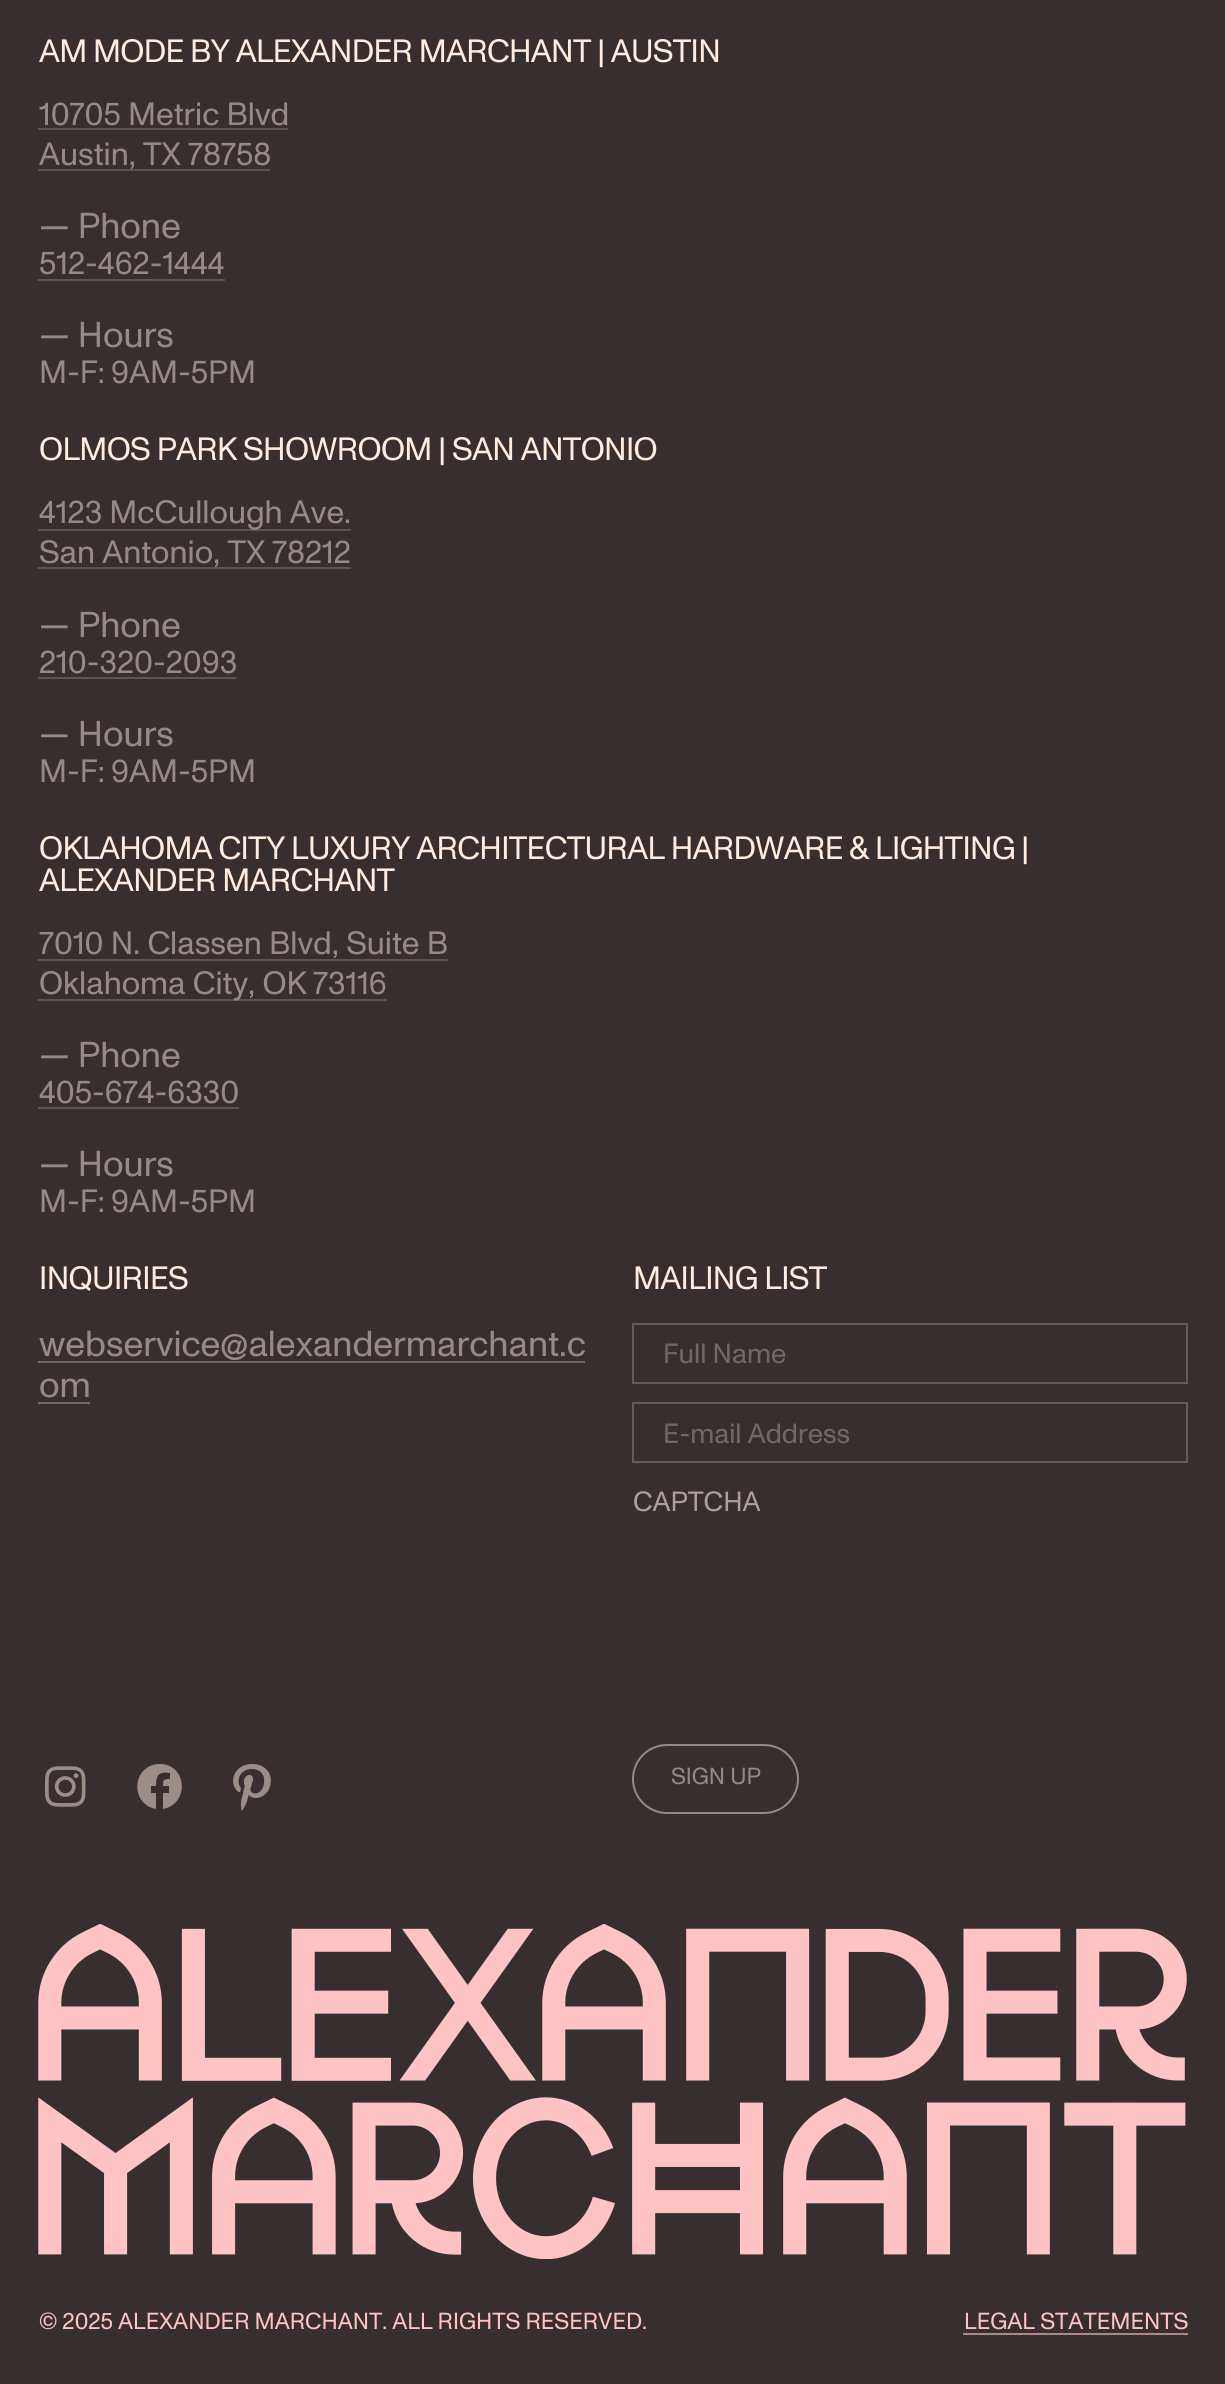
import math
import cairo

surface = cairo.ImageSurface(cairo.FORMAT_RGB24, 1225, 2384)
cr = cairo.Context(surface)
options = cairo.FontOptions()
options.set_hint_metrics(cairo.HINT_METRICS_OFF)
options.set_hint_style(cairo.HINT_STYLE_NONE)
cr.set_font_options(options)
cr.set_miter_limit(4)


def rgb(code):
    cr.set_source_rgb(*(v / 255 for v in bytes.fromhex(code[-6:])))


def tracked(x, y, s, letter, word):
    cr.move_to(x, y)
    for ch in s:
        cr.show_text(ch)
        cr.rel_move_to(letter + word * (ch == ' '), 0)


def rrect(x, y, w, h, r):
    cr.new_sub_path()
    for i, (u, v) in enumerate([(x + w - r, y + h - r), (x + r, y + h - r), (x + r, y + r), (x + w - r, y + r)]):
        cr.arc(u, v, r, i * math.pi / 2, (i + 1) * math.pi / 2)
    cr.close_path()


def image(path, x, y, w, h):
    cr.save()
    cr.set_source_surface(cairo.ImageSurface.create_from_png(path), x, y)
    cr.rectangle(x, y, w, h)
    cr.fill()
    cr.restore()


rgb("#372e2f")
cr.paint()
for x, y, w, h, color in [
    (38, 128, 250, 2, "#5f5452"),
    (38, 169, 232, 2, "#5f5452"),
    (38, 279, 187, 2, "#5f5452"),
    (38, 529, 313, 2, "#5f5452"),
    (38, 567, 313, 2, "#5f5452"),
    (38, 677, 198, 2, "#5f5452"),
    (38, 959, 410, 2, "#5f5452"),
    (38, 999, 349, 2, "#5f5452"),
    (38, 1107, 201, 2, "#5f5452"),
    (38, 1361, 547, 2, "#736764"),
    (38, 1402, 52, 2, "#736764"),
]:
    rgb(color)
    cr.rectangle(x, y, w, h)
    cr.fill()
image("img/1.png", 45, 1766, 41, 41)
rgb("#9b8d87")
cr.new_path()
cr.move_to(160, 1764)
cr.curve_to(132, 1764, 129, 1804, 156, 1809)
cr.line_to(156, 1793)
cr.line_to(151, 1793)
cr.line_to(151, 1786)
cr.line_to(156, 1786)
cr.curve_to(156, 1776, 158, 1771, 170, 1773)
cr.line_to(170, 1779)
cr.curve_to(163, 1779, 163, 1780, 163, 1786)
cr.line_to(169, 1786)
cr.line_to(169, 1793)
cr.line_to(163, 1793)
cr.line_to(163, 1809)
cr.curve_to(190, 1804, 187, 1764, 160, 1764)
cr.close_path()
cr.fill()
image("img/2.png", 233, 1764, 38, 47)
cr.rectangle(633, 1324, 554, 59)
rgb("#675b59")
cr.stroke()
cr.rectangle(633, 1403, 554, 59)
cr.stroke()
rrect(633, 1745, 165, 68, 34)
rgb("#978983")
cr.stroke()
image("img/3.png", 38, 1924, 1149, 335)
rgb("#af8788")
cr.rectangle(963, 2333, 225, 2)
cr.fill()
cr.select_font_face("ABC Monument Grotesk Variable")
cr.set_font_size(32.25)
rgb("#ffebdf")
tracked(39, 62, "AM MODE BY ALEXANDER MARCHANT | AUSTIN", -0.65, -0.25)
rgb("#978983")
cr.move_to(39, 125)
cr.show_text("10705 Metric Blvd")
cr.move_to(39, 165)
cr.show_text("Austin, TX 78758")
cr.set_font_size(36)
cr.move_to(39, 238)
cr.show_text("— Phone")
cr.set_font_size(32.25)
cr.move_to(39, 274)
cr.show_text("512-462-1444")
cr.set_font_size(36)
cr.move_to(39, 347)
cr.show_text("— Hours")
cr.set_font_size(32.25)
tracked(39, 383, "M-F: 9AM-5PM", 0, -1)
rgb("#ffebdf")
tracked(39, 460, "OLMOS PARK SHOWROOM | SAN ANTONIO", -0.65, 0)
rgb("#978983")
for x, y, s in [
    (39, 523, "4123 McCullough Ave."),
    (39, 563, "San Antonio, TX"),
    (272, 563, "78212"),
]:
    cr.move_to(x, y)
    cr.show_text(s)
cr.set_font_size(36)
cr.move_to(39, 637)
cr.show_text("— Phone")
cr.set_font_size(32.25)
cr.move_to(39, 673)
cr.show_text("210-320-2093")
cr.set_font_size(36)
cr.move_to(39, 746)
cr.show_text("— Hours")
cr.set_font_size(32.25)
tracked(39, 782, "M-F: 9AM-5PM", 0, -1)
rgb("#ffebdf")
tracked(39, 859, "OKLAHOMA CITY LUXURY ARCHITECTURAL HARDWARE & LIGHTING |", -0.65, -0.25)
tracked(39, 891, "ALEXANDER MARCHANT", -0.65, 0)
rgb("#978983")
for x, y, s in [
    (39, 954, "7010 N. Classen Blvd, Suite B"),
    (39, 994, "Oklahoma City, OK"),
    (313, 994, "73116"),
]:
    cr.move_to(x, y)
    cr.show_text(s)
cr.set_font_size(36)
cr.move_to(39, 1067)
cr.show_text("— Phone")
cr.set_font_size(32.25)
cr.move_to(39, 1103)
cr.show_text("405-674-6330")
cr.set_font_size(36)
cr.move_to(39, 1176)
cr.show_text("— Hours")
cr.set_font_size(32.25)
tracked(39, 1212, "M-F: 9AM-5PM", 0, -1)
rgb("#ffebdf")
tracked(39, 1289, "INQUIRIES", -0.65, 0)
cr.set_font_size(36)
rgb("#978983")
cr.move_to(39, 1356)
cr.show_text("webservice@alexandermarchant.c")
cr.move_to(39, 1397)
cr.show_text("om")
cr.set_font_size(32.25)
rgb("#ffebdf")
tracked(633, 1289, "MAILING LIST", -0.65, 0)
cr.set_font_size(27.75)
rgb("#736764")
cr.move_to(663, 1363)
cr.show_text("Full Name")
cr.move_to(663, 1443)
cr.show_text("E-mail Address")
rgb("#af9f99")
cr.move_to(633, 1511)
cr.show_text("CAPTCHA")
cr.set_font_size(23.25)
rgb("#978983")
cr.move_to(671, 1784)
cr.show_text("SIGN UP")
rgb("#ffc3c3")
tracked(39, 2329, "© 2025 ALEXANDER MARCHANT. ALL RIGHTS RESERVED.", 0, -0.25)
cr.move_to(964, 2329)
cr.show_text("LEGAL STATEMENTS")
surface.write_to_png("page.png")
